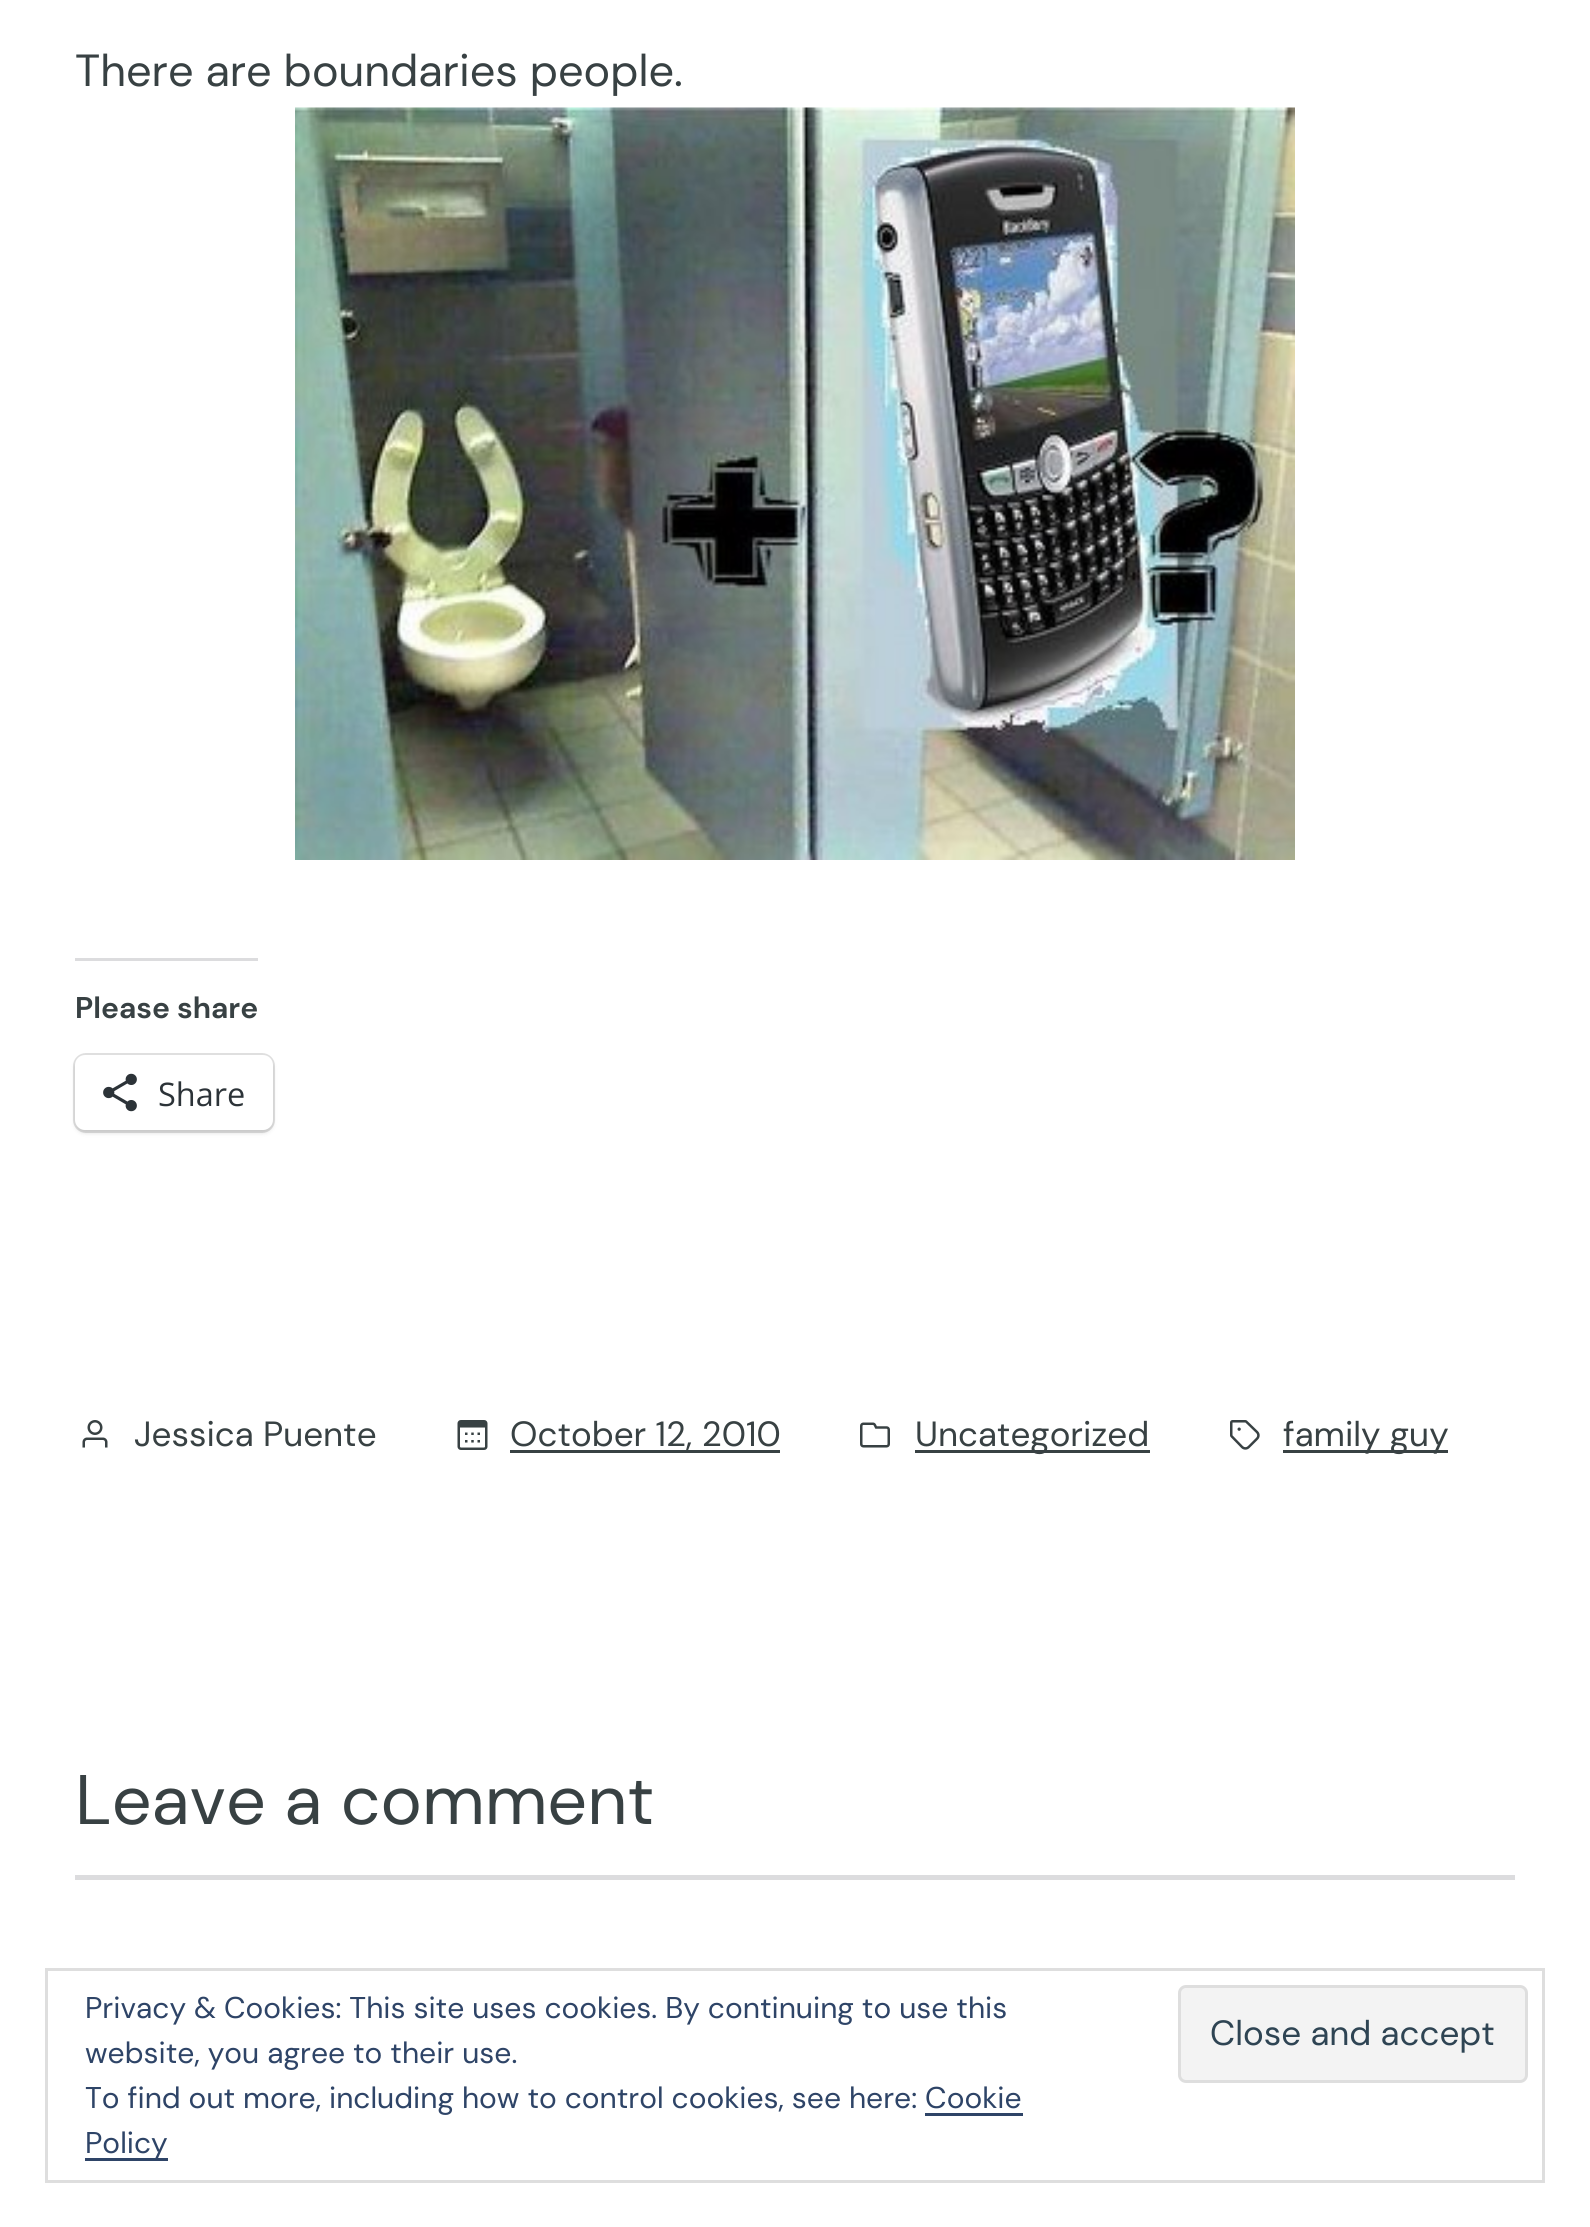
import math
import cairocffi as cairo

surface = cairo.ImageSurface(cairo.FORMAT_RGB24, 1590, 2227)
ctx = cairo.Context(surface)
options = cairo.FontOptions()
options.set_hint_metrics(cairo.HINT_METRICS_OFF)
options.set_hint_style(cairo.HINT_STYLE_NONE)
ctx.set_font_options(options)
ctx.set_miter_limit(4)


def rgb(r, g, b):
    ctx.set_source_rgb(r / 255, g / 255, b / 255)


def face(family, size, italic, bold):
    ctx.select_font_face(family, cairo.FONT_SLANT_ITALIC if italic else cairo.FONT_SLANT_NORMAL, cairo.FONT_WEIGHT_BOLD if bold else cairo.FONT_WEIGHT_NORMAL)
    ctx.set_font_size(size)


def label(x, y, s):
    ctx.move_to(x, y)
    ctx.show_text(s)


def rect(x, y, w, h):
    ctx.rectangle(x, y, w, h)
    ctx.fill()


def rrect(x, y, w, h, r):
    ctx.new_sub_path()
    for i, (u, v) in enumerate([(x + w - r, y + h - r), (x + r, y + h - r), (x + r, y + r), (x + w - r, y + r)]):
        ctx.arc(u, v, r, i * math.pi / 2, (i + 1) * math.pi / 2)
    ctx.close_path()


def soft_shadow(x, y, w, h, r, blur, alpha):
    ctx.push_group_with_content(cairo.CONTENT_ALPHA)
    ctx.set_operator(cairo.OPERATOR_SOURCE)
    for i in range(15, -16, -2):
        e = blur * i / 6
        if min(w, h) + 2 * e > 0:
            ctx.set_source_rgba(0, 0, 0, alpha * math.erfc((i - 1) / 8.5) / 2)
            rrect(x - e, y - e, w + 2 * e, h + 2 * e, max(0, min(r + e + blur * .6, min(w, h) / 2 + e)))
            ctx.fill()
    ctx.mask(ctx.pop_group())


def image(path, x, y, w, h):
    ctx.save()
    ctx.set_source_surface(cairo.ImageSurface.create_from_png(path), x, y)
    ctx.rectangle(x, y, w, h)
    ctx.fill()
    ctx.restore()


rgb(255, 255, 255)
ctx.paint()
face('DM Sans', 45, 0, 0)
rgb(56, 65, 67)
label(75, 86, 'There are boundaries people.')
image('image0.png', 295, 107, 1000, 753)
rgb(220, 220, 222)
rect(75, 958, 183, 3)
face('DM Sans', 30, 0, 1)
rgb(56, 65, 67)
label(75, 1018, 'Please share')
rrect(74.5, 1054.5, 199, 77, 11.5)
rgb(224, 224, 224)
ctx.set_line_width(3)
ctx.stroke()
rgb(0, 0, 0)
soft_shadow(75, 1058, 198, 75, 10, 2.5, 0.12)
rgb(255, 255, 255)
rrect(75, 1055, 198, 75, 10)
ctx.fill()
image('image1.png', 103, 1073, 34, 39)
face('Open Sans', 32.5, 0, 0)
rgb(44, 51, 56)
label(158, 1106, 'Share')
image('image2.png', 82, 1420, 26, 28)
face('DM Sans', 35, 0, 0)
rgb(56, 65, 67)
label(134, 1446, 'Jessica Puente')
image('image3.png', 457, 1420, 31, 30)
rect(510, 1450, 270, 3)
label(510, 1446, 'October 12, 2010')
image('image4.png', 860, 1422, 30, 26)
rect(915, 1450, 235, 3)
label(915, 1446, 'Uncategorized')
image('image5.png', 1230, 1420, 30, 30)
rect(1283, 1450, 165, 3)
label(1283, 1446, 'family guy')
face('DM Sans', 70, 0, 0)
label(75, 1824, 'Leave a comment')
rgb(220, 220, 222)
rect(75, 1875, 1440, 5)
ctx.rectangle(46.5, 1969.5, 1497, 212)
rgb(222, 222, 222)
ctx.stroke()
face('DM Sans', 30, 0, 0)
rgb(46, 68, 103)
label(85, 2018, 'Privacy & Cookies: This site uses cookies. By continuing to use this')
label(85, 2063, 'website, you agree to their use.')
rgb(243, 243, 243)
rrect(1179.5, 1986.5, 347, 95, 6.5)
ctx.fill_preserve()
rgb(222, 222, 222)
ctx.stroke()
face('DM Sans', 35, 0, 0)
rgb(46, 68, 83)
label(1210, 2045, 'Close and accept')
face('DM Sans', 30, 0, 0)
rgb(46, 68, 103)
label(85, 2108, 'To find out more, including how to control cookies, see here: Cookie')
rect(85, 2158, 83, 3)
label(85, 2153, 'Policy')
rect(925, 2113, 98, 3)
surface.write_to_png('render.png')
